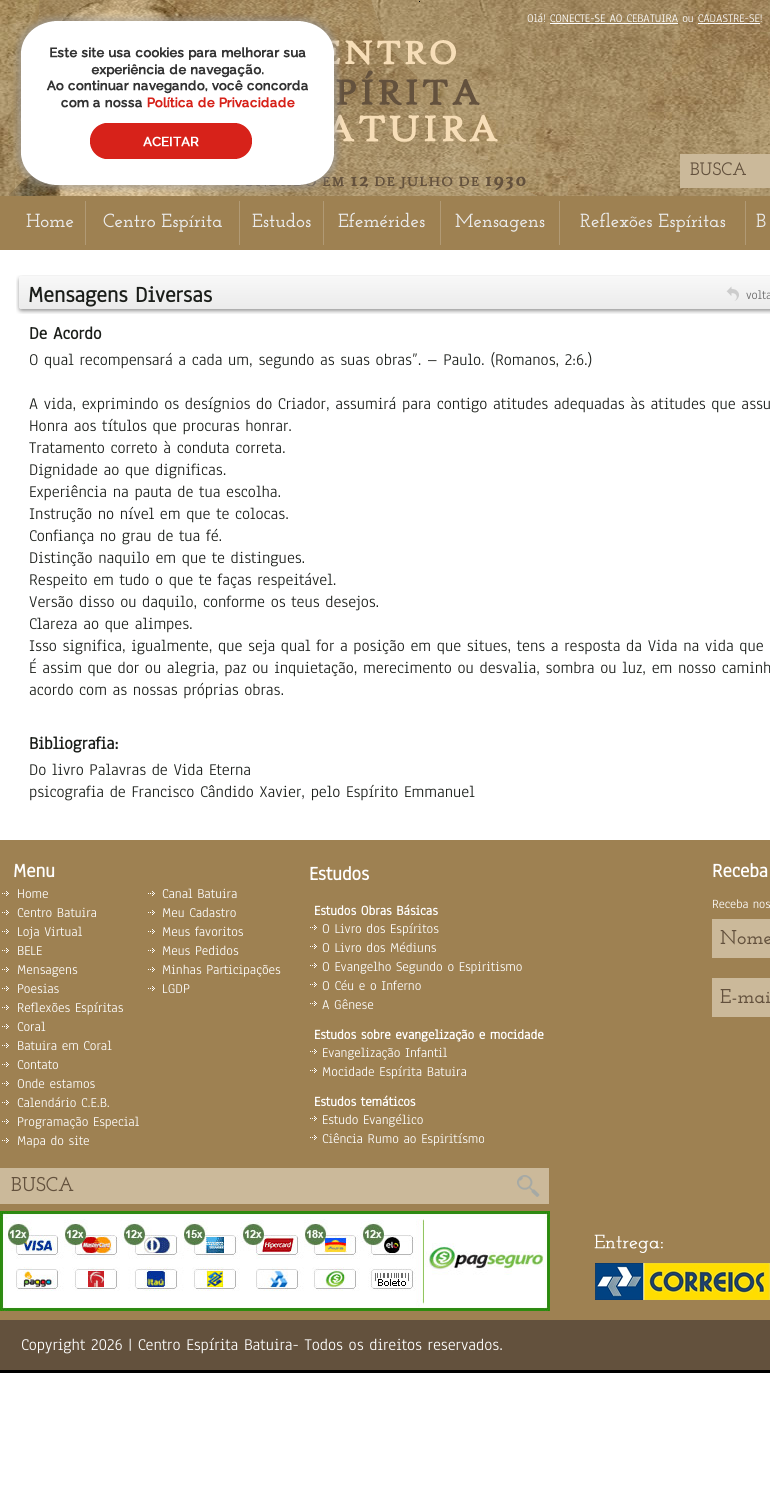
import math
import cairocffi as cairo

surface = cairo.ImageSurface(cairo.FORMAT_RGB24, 770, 1493)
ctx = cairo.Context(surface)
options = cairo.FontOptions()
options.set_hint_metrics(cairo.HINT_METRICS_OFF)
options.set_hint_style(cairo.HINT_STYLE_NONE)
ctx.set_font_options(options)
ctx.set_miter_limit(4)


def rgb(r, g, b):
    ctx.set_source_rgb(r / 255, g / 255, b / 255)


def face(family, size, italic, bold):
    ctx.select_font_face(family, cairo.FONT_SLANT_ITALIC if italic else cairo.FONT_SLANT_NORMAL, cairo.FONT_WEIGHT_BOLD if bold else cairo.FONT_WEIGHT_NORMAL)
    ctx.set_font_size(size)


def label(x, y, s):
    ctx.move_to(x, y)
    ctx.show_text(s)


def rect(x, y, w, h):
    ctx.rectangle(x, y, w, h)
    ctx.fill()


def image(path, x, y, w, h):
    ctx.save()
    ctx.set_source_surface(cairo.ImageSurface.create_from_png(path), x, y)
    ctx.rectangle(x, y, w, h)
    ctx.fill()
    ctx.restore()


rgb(255, 255, 255)
ctx.paint()
image('image0.png', 0, 0, 770, 196)
image('image1.png', 9, 0, 530, 196)
face('Anaheim', 12, 0, 0)
rgb(255, 255, 255)
label(527, 22, 'Olá! CONECTE-SE AO CEBATUIRA ou CADASTRE-SE!')
rect(550, 23, 128, 1)
rect(698, 23, 62, 1)
rgb(203, 185, 154)
rect(680, 154, 90, 34)
face('Josefin Slab SemiBold', 18, 0, 0)
rgb(99, 81, 61)
label(690, 175, 'BUSCA')
rgb(158, 129, 82)
rect(0, 196, 770, 54)
face('Josefin Slab SemiBold', 19, 0, 0)
rgb(235, 235, 235)
label(26, 227, 'Home')
rgb(177, 154, 117)
rect(85, 201, 1, 44)
rgb(235, 235, 235)
label(103, 227, 'Centro Espírita')
rgb(177, 154, 117)
rect(239, 201, 1, 44)
rgb(235, 235, 235)
label(252, 227, 'Estudos')
rgb(177, 154, 117)
rect(323, 201, 1, 44)
rgb(235, 235, 235)
label(338, 227, 'Efemérides')
rgb(177, 154, 117)
rect(440, 201, 1, 44)
rgb(235, 235, 235)
label(455, 227, 'Mensagens')
rgb(177, 154, 117)
rect(559, 201, 1, 44)
rgb(235, 235, 235)
label(580, 227, 'Reflexões Espíritas')
rgb(177, 154, 117)
rect(745, 201, 1, 44)
rgb(235, 235, 235)
label(756, 227, 'B')
image('image2.png', 16, 275, 754, 39)
face('Anaheim', 23, 0, 1)
rgb(27, 30, 26)
label(28, 302, 'Mensagens Diversas')
image('image3.png', 726, 286, 13, 15)
face('Anaheim', 13, 0, 0)
rgb(102, 102, 102)
label(746, 299, 'volta')
face('Anaheim', 18, 0, 1)
rgb(27, 30, 26)
label(29, 339, 'De Acordo')
face('Anaheim', 17, 0, 0)
label(29, 365, 'O qual recompensará a cada um, segundo as suas obras”. – Paulo. (Romanos, 2:6.)')
label(29, 409, 'A vida, exprimindo os desígnios do Criador, assumirá para contigo atitudes adequadas às atitudes que assu')
label(29, 431, 'Honra aos títulos que procuras honrar.')
label(29, 453, 'Tratamento correto à conduta correta.')
label(29, 475, 'Dignidade ao que dignificas.')
label(29, 497, 'Experiência na pauta de tua escolha.')
label(29, 519, 'Instrução no nível em que te colocas.')
label(29, 541, 'Confiança no grau de tua fé.')
label(29, 563, 'Distinção naquilo em que te distingues.')
label(29, 585, 'Respeito em tudo o que te faças respeitável.')
label(29, 607, 'Versão disso ou daquilo, conforme os teus desejos.')
label(29, 629, 'Clareza ao que alimpes.')
label(29, 651, 'Isso significa, igualmente, que seja qual for a posição em que situes, tens a resposta da Vida na vida que')
label(29, 673, 'É assim que dor ou alegria, paz ou inquietação, merecimento ou desvalia, sombra ou luz, em nosso caminh')
label(29, 695, 'acordo com as nossas próprias obras.')
face('Anaheim', 18, 0, 1)
label(29, 749, 'Bibliografia:')
face('Anaheim', 17, 0, 0)
label(29, 775, 'Do livro Palavras de Vida Eterna')
label(29, 797, 'psicografia de Francisco Cândido Xavier, pelo Espírito Emmanuel')
rgb(158, 129, 82)
rect(0, 840, 770, 480)
face('Anaheim', 20, 0, 1)
rgb(255, 255, 255)
label(13, 877, 'Menu')
label(309, 880, 'Estudos')
face('Anaheim', 14, 0, 1)
label(314, 915, 'Estudos Obras Básicas')
image('image4.png', 310, 925, 7, 5)
face('Anaheim', 14, 0, 0)
label(322, 933, 'O Livro dos Espíritos')
image('image4.png', 310, 944, 7, 5)
label(322, 952, 'O Livro dos Médiuns')
image('image4.png', 310, 963, 7, 5)
label(322, 971, 'O Evangelho Segundo o Espiritismo')
image('image4.png', 310, 982, 7, 5)
label(322, 990, 'O Céu e o Inferno')
image('image4.png', 310, 1001, 7, 5)
label(322, 1009, 'A Gênese')
face('Anaheim', 14, 0, 1)
label(314, 1039, 'Estudos sobre evangelização e mocidade')
image('image4.png', 310, 1049, 7, 5)
face('Anaheim', 14, 0, 0)
label(322, 1057, 'Evangelização Infantil')
image('image4.png', 310, 1068, 7, 5)
label(322, 1076, 'Mocidade Espírita Batuira')
face('Anaheim', 14, 0, 1)
label(314, 1106, 'Estudos temáticos')
image('image4.png', 310, 1116, 7, 5)
face('Anaheim', 14, 0, 0)
label(322, 1124, 'Estudo Evangélico')
image('image4.png', 310, 1135, 7, 5)
label(322, 1143, 'Ciência Rumo ao Espiritísmo')
image('image4.png', 2, 891, 7, 5)
label(17, 898, 'Home')
image('image4.png', 2, 910, 7, 5)
label(17, 917, 'Centro Batuira')
image('image4.png', 2, 929, 7, 5)
label(17, 936, 'Loja Virtual')
image('image4.png', 2, 948, 7, 5)
label(17, 955, 'BELE')
image('image4.png', 2, 967, 7, 5)
label(17, 974, 'Mensagens')
image('image4.png', 2, 986, 7, 5)
label(17, 993, 'Poesias')
image('image4.png', 2, 1005, 7, 5)
label(17, 1012, 'Reflexões Espíritas')
image('image4.png', 2, 1024, 7, 5)
label(17, 1031, 'Coral')
image('image4.png', 2, 1043, 7, 5)
label(17, 1050, 'Batuira em Coral')
image('image4.png', 2, 1062, 7, 5)
label(17, 1069, 'Contato')
image('image4.png', 2, 1081, 7, 5)
label(17, 1088, 'Onde estamos')
image('image4.png', 2, 1100, 7, 5)
label(17, 1107, 'Calendário C.E.B.')
image('image4.png', 2, 1119, 7, 5)
label(17, 1126, 'Programação Especial')
image('image4.png', 2, 1138, 7, 5)
label(17, 1145, 'Mapa do site')
image('image4.png', 148, 891, 7, 5)
label(162, 898, 'Canal Batuira')
image('image4.png', 148, 910, 7, 5)
label(162, 917, 'Meu Cadastro')
image('image4.png', 148, 929, 7, 5)
label(162, 936, 'Meus favoritos')
image('image4.png', 148, 948, 7, 5)
label(162, 955, 'Meus Pedidos')
image('image4.png', 148, 967, 7, 5)
label(162, 974, 'Minhas Participações')
image('image4.png', 148, 986, 7, 5)
label(162, 993, 'LGDP')
face('Anaheim', 20, 0, 1)
label(712, 877, 'Receba')
face('Anaheim', 13, 0, 0)
label(712, 908, 'Receba nos')
rgb(203, 185, 154)
rect(712, 919, 58, 39)
face('Josefin Slab SemiBold', 20, 0, 0)
rgb(99, 81, 61)
label(720, 944, 'Nome')
rgb(203, 185, 154)
rect(712, 978, 58, 39)
rgb(99, 81, 61)
label(720, 1003, 'E-mai')
image('image5.png', 13, 13, 329, 180)
rgb(203, 185, 154)
rect(0, 1168, 549, 36)
rgb(99, 81, 61)
label(11, 1191, 'BUSCA')
image('image6.png', 517, 1175, 23, 22)
image('image7.png', 594, 1234, 176, 66)
image('image8.png', 0, 1211, 550, 100)
rect(0, 1320, 770, 50)
face('Anaheim', 17, 0, 0)
rgb(255, 255, 255)
label(21, 1350, 'Copyright 2026 | Centro Espírita Batuira- Todos os direitos reservados.')
rgb(0, 0, 0)
rect(0, 1370, 770, 3)
surface.write_to_png('render.png')
